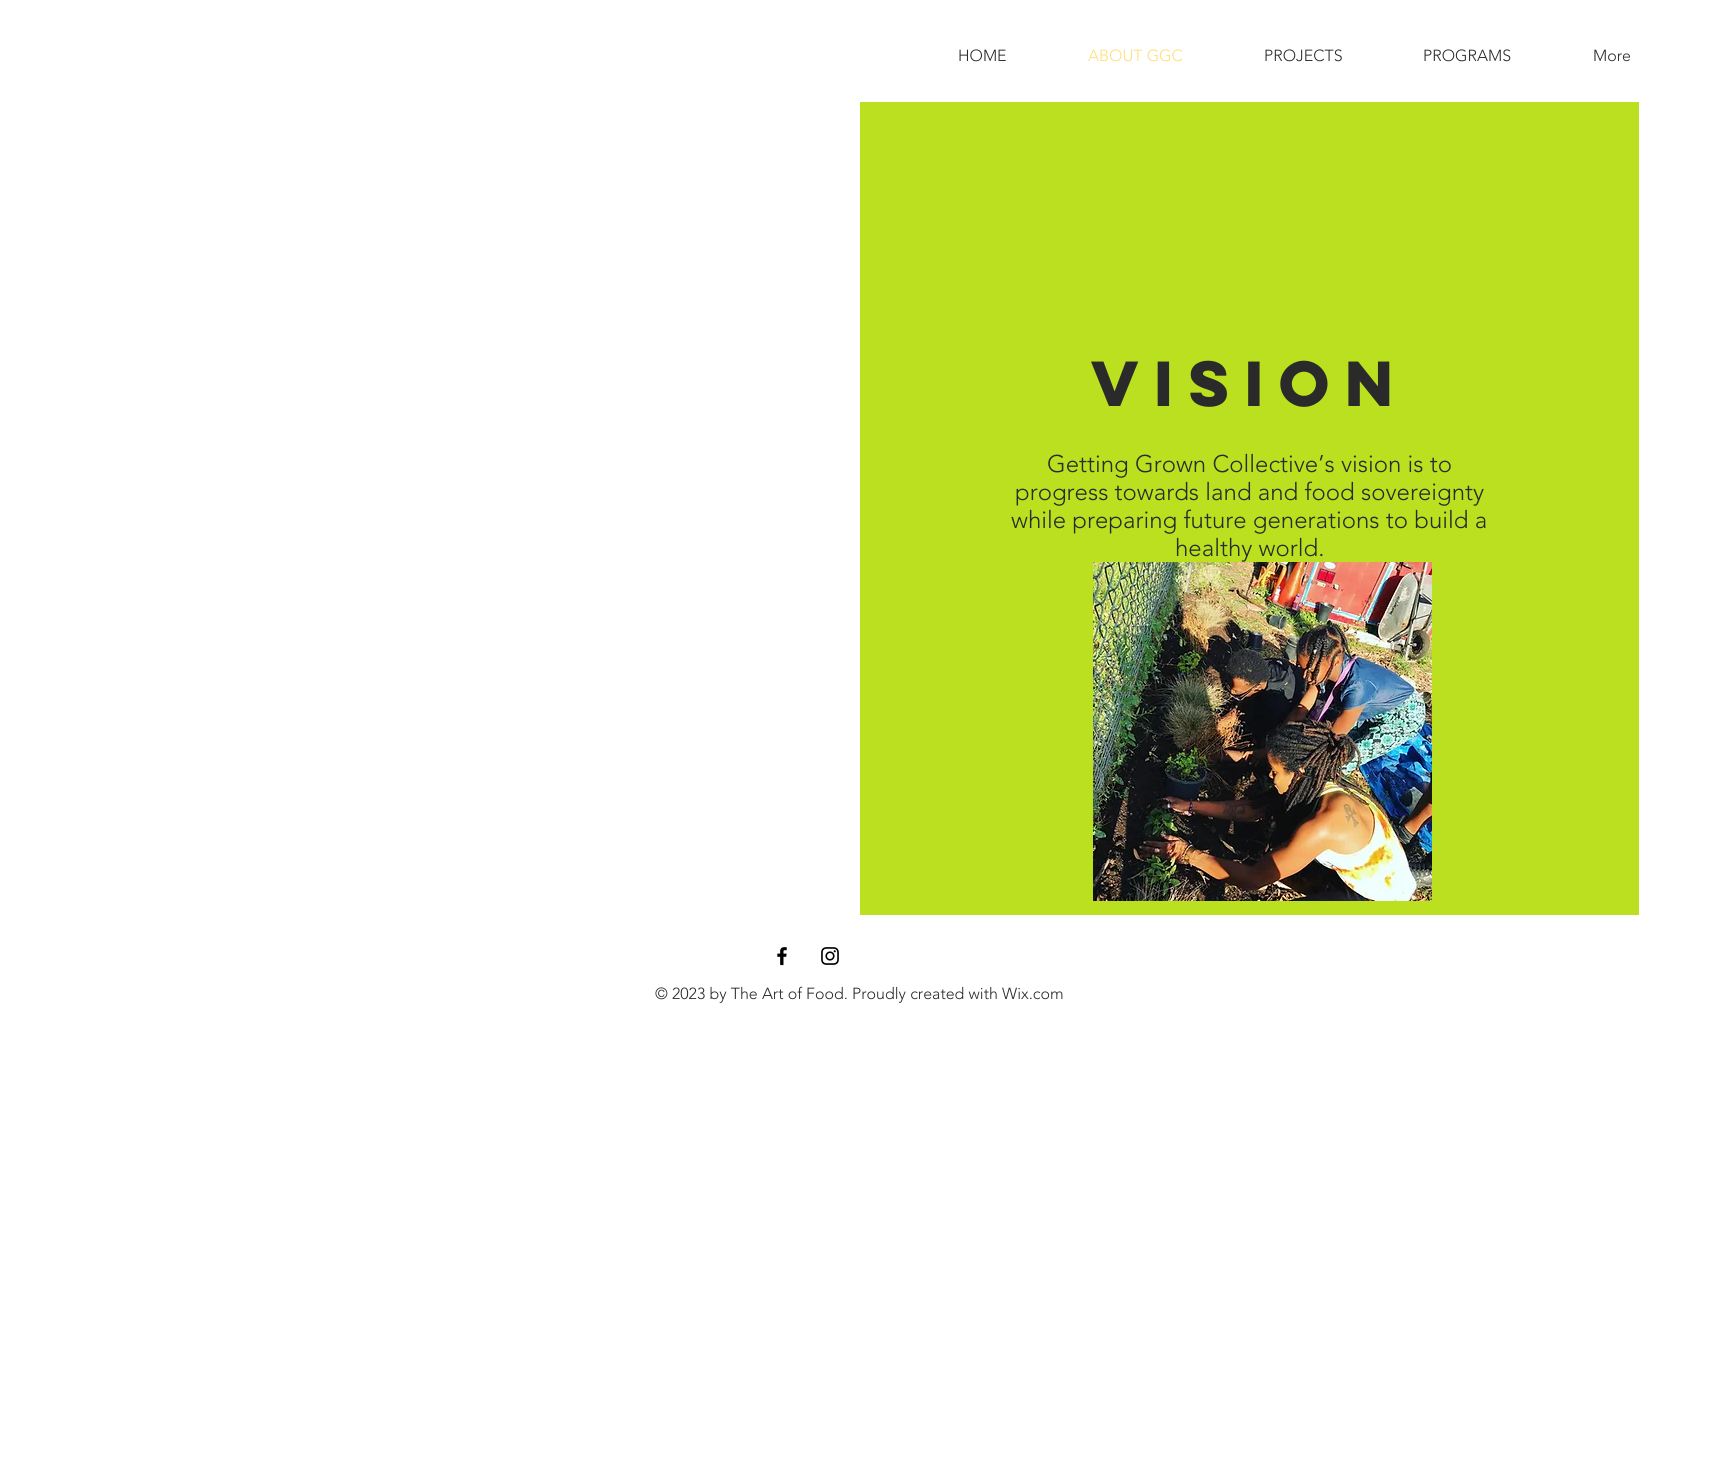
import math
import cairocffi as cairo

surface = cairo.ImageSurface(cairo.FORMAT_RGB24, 1719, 1471)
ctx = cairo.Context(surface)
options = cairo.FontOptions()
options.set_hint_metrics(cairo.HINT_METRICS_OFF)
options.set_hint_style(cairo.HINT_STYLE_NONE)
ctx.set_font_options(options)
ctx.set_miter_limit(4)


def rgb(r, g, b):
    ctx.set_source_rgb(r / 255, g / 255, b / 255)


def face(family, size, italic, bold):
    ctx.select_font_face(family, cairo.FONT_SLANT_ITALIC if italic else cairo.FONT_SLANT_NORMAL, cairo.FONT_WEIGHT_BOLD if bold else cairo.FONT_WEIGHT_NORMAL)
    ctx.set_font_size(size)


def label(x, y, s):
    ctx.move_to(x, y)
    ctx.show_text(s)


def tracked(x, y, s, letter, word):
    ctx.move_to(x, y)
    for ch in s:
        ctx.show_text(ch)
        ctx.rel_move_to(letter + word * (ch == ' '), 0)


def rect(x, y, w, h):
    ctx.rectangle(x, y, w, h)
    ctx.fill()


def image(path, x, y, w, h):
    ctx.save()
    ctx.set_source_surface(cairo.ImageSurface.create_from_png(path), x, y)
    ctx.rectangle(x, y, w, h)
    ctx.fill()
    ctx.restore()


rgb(255, 255, 255)
ctx.paint()
face('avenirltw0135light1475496 Light', 16, 0, 0)
rgb(42, 42, 42)
label(958, 61, 'HOME')
rgb(255, 222, 122)
label(1088, 61, 'ABOUT GGC')
rgb(42, 42, 42)
label(1264, 61, 'PROJECTS')
label(1423, 61, 'PROGRAMS')
label(1593, 61, 'More')
rgb(186, 224, 31)
rect(860, 102, 779, 813)
face('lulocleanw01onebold', 57, 0, 1)
rgb(42, 42, 42)
tracked(1091, 406, 'VISiON', 3, 0)
face('avenirltw0135light1475496 Light', 24, 0, 0)
label(1047, 472, 'Getting Grown Collective’s vision is to')
label(1015, 500, 'progress towards land and food sovereignty')
label(1011, 528, 'while preparing future generations to build a')
label(1175, 556, 'healthy world.')
image('image0.png', 1093, 562, 339, 339)
image('image1.png', 777, 946, 10, 20)
image('image2.png', 821, 947, 18, 18)
face('avenirltw0135light1475496 Light', 16, 0, 0)
label(655, 999, '© 2023 by The Art of Food. Proudly created with Wix.com')
surface.write_to_png('render.png')
